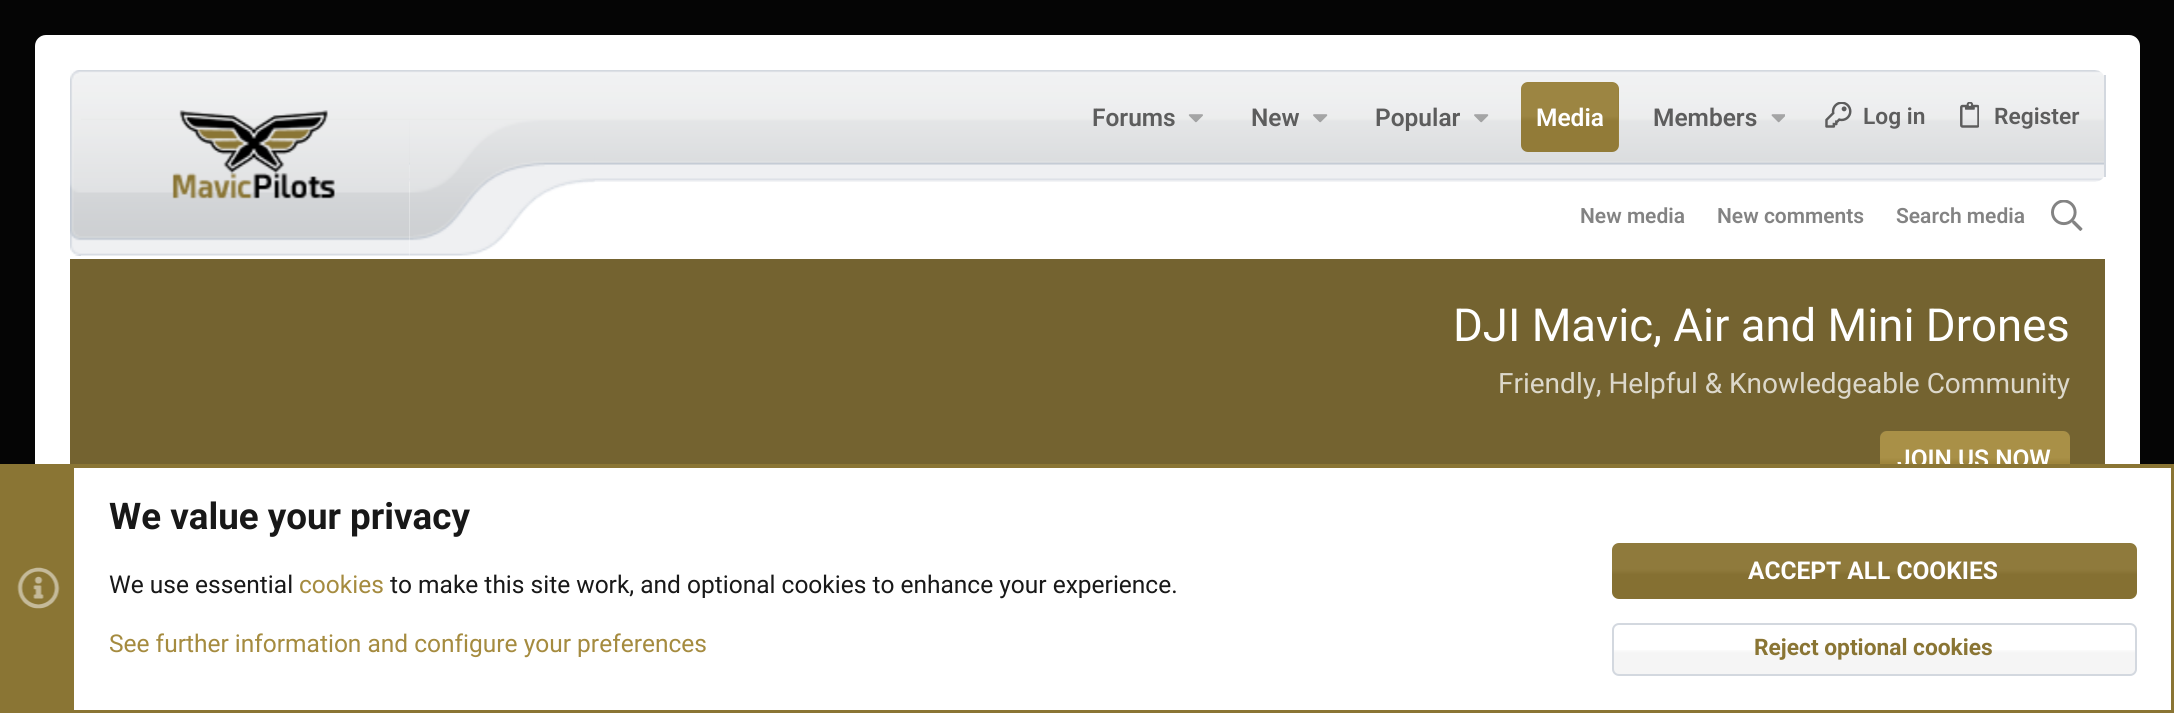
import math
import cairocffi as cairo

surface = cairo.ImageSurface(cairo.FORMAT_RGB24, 2174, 713)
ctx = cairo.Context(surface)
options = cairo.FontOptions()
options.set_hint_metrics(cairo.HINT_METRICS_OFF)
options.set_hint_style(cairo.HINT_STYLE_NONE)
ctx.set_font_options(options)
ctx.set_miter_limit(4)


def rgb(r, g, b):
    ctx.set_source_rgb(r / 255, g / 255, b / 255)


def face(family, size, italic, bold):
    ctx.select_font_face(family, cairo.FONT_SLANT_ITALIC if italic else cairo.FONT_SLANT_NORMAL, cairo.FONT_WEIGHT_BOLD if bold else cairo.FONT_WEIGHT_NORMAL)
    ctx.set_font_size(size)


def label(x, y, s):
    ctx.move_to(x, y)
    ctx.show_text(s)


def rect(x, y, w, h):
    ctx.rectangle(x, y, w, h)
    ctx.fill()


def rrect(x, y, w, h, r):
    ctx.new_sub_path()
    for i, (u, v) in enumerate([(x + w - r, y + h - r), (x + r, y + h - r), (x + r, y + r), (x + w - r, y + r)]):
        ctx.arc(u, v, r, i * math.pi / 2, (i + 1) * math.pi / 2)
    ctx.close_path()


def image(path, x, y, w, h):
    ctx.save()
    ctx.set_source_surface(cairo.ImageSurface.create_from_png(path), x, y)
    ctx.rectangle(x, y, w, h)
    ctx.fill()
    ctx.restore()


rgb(5, 5, 5)
ctx.paint()
rgb(255, 255, 255)
rrect(35, 35, 2105, 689, 11)
ctx.fill()
image('image0.png', 70, 70, 2034, 112)
rgb(211, 216, 223)
rect(2104, 75, 2, 102)
image('image1.png', 81, 120, 329, 136)
image('image2.png', 70, 70, 11, 186)
image('image3.png', 172, 110, 163, 89)
image('image4.png', 409, 120, 186, 136)
face('Roboto SemiBold', 24.5, 0, 0)
rgb(93, 93, 93)
label(1092, 126, 'Forums')
image('image5.png', 1188, 114, 15, 9)
label(1251, 126, 'New')
image('image6.png', 1313, 114, 15, 9)
label(1375, 126, 'Popular')
image('image6.png', 1474, 114, 15, 9)
rgb(152, 128, 58)
rrect(1521, 82, 98, 70, 7)
ctx.fill()
image('image7.png', 1521, 82, 97, 70)
rgb(255, 255, 255)
label(1536, 126, 'Media')
rgb(93, 93, 93)
label(1653, 126, 'Members')
image('image8.png', 1771, 114, 14, 9)
image('image9.png', 1825, 102, 27, 26)
face('Roboto SemiBold', 22.75, 0, 0)
label(1863, 124, 'Log in')
image('image10.png', 1960, 102, 19, 26)
label(1994, 124, 'Register')
face('Roboto SemiBold', 21, 0, 0)
rgb(131, 131, 131)
label(1580, 223, 'New media')
label(1717, 223, 'New comments')
label(1896, 223, 'Search media')
image('image11.png', 2051, 200, 32, 31)
rgb(116, 99, 48)
rect(70, 259, 2035, 205)
face('Roboto', 45.5, 0, 0)
rgb(255, 255, 255)
label(1453, 341, 'DJI Mavic, Air and Mini Drones')
face('Roboto', 28, 0, 0)
rgb(220, 216, 203)
label(1498, 393, 'Friendly, Helpful & Knowledgeable Community')
rgb(165, 139, 63)
rrect(1880, 431, 190, 56, 7)
ctx.fill()
image('image12.png', 1880, 431, 190, 33)
face('Roboto SemiBold', 24.5, 0, 0)
rgb(255, 255, 255)
label(1897, 467, 'JOIN US NOW')
rect(1880, 468, 291, 242)
ctx.rectangle(2, 466, 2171, 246)
rgb(138, 117, 52)
ctx.set_line_width(4)
ctx.stroke()
rect(4, 468, 70, 242)
image('image13.png', 17, 567, 43, 42)
face('Roboto', 36.75, 0, 1)
rgb(24, 24, 24)
label(109, 529, 'We value your privacy')
face('Roboto', 24.5, 0, 0)
label(109, 593, 'We use essential')
rgb(165, 139, 63)
label(299, 593, 'cookies')
rgb(24, 24, 24)
label(390, 593, 'to make this site work, and optional cookies to enhance your experience.')
rgb(165, 139, 63)
label(109, 652, 'See further information and configure your preferences')
rgb(138, 117, 52)
rrect(1612, 543, 525, 56, 7)
ctx.fill()
image('image14.png', 1612, 543, 525, 56)
face('Roboto', 24.5, 0, 1)
rgb(255, 255, 255)
label(1748, 579, 'ACCEPT ALL COOKIES')
image('image15.png', 1612, 650, 525, 24)
rrect(1613, 624, 523, 51, 6)
rgb(211, 216, 223)
ctx.set_line_width(2)
ctx.stroke()
face('Roboto', 22.75, 0, 1)
rgb(138, 117, 52)
label(1754, 655, 'Reject optional cookies')
surface.write_to_png('render.png')
